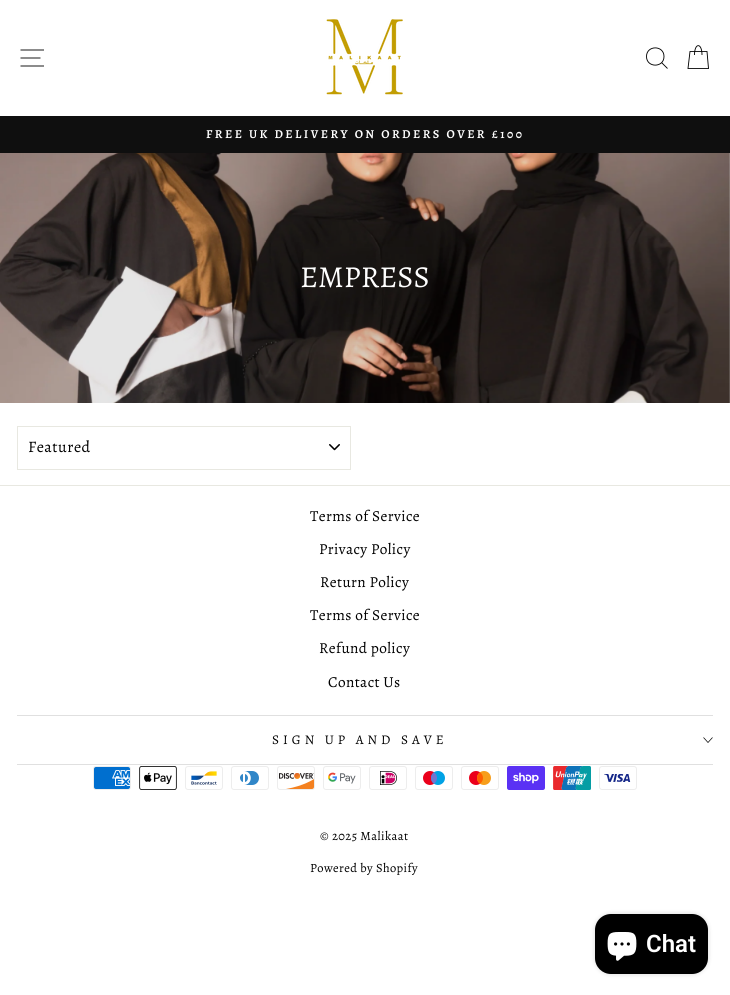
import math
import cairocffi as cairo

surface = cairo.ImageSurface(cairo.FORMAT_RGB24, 730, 995)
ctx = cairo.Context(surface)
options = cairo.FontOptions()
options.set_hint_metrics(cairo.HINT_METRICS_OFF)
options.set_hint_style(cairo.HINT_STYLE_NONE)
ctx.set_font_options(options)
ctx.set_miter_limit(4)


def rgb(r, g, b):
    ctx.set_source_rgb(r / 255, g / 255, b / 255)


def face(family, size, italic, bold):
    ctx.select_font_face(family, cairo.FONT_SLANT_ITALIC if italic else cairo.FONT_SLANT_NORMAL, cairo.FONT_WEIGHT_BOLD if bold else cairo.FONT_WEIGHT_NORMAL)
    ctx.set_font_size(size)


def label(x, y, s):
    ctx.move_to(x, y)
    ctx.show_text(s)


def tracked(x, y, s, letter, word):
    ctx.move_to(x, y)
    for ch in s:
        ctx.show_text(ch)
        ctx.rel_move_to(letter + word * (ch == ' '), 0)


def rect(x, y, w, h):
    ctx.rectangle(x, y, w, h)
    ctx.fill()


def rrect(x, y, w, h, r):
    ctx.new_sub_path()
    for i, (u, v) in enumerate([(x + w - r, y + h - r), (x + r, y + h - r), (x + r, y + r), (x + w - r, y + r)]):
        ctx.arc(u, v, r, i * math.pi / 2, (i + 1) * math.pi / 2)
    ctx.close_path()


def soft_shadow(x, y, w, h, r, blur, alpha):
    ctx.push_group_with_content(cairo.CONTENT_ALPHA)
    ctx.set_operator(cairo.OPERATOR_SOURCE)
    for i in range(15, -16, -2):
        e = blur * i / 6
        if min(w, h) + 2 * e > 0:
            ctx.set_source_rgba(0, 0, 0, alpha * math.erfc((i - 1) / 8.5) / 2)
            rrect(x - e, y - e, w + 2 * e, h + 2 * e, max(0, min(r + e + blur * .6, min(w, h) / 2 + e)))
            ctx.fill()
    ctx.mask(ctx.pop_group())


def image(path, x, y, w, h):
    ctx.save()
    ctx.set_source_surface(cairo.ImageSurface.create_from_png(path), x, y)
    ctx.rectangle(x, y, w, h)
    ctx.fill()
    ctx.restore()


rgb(255, 255, 255)
ctx.paint()
ctx.new_path()
ctx.move_to(20.5, 50)
ctx.line_to(44, 50)
ctx.move_to(20.5, 58)
ctx.line_to(40.5, 58)
ctx.move_to(20.5, 66)
ctx.line_to(44, 66)
rgb(0, 0, 0)
ctx.set_line_width(0.9)
ctx.stroke()
image('image0.png', 326, 19, 77, 76)
ctx.new_path()
ctx.move_to(664, 56.5)
ctx.curve_to(664, 68, 646.5, 68, 646.5, 56.5)
ctx.curve_to(646.5, 45, 664, 45, 664, 56.5)
ctx.close_path()
ctx.move_to(667.5, 68.5)
ctx.line_to(661.5, 62.5)
ctx.move_to(694.5, 55)
ctx.curve_to(694.5, 42.5, 702, 42.5, 702, 55)
ctx.move_to(690, 51.5)
ctx.line_to(707, 51.5)
ctx.line_to(708.5, 68.5)
ctx.line_to(688, 68.5)
ctx.close_path()
ctx.stroke()
rgb(15, 15, 15)
rect(0, 116, 730, 37)
face('Alegreya SemiBold', 12.15, 0, 0)
rgb(255, 255, 255)
tracked(206, 138, 'FREE UK DELIVERY ON ORDERS OVER £100', 2.45, 0)
image('image1.png', 0, 153, 730, 250)
face('Alegreya', 30.5, 0, 0)
label(300, 287, 'EMPRESS')
image('image2.png', 329, 444, 11, 7)
ctx.rectangle(17.5, 426.5, 333, 43)
rgb(232, 232, 225)
ctx.set_line_width(1)
ctx.stroke()
face('Alegreya', 16, 0, 0)
rgb(0, 0, 0)
tracked(28, 452, 'Featured', 0.5, 0)
rgb(232, 232, 225)
rect(0, 485, 730, 1)
face('Alegreya', 15.25, 0, 0)
rgb(0, 0, 0)
tracked(310, 521, 'Terms of Service', 0.4, 0)
tracked(319, 554, 'Privacy Policy', 0.4, 0)
tracked(320, 587, 'Return Policy', 0.4, 0)
tracked(310, 620, 'Terms of Service', 0.4, 0)
tracked(319, 653, 'Refund policy', 0.4, 0)
tracked(328, 687, 'Contact Us', 0.4, 0)
rgb(224, 224, 224)
rect(17, 715, 696, 1)
face('Alegreya', 13.25, 0, 0)
rgb(0, 0, 0)
tracked(272, 744, 'SIGN UP AND SAVE', 4, 0)
ctx.new_path()
ctx.move_to(703.5, 737.5)
ctx.line_to(708, 742.5)
ctx.line_to(712.5, 737.5)
ctx.set_line_width(0.7)
ctx.stroke()
rgb(224, 224, 224)
rect(17, 764, 696, 1)
image('image3.png', 93, 766, 38, 24)
image('image4.png', 139, 766, 38, 24)
image('image5.png', 185, 766, 38, 24)
image('image6.png', 231, 766, 38, 24)
image('image7.png', 277, 766, 38, 24)
image('image8.png', 323, 766, 38, 24)
image('image9.png', 369, 766, 38, 24)
image('image10.png', 415, 766, 38, 24)
image('image11.png', 461, 766, 38, 24)
image('image12.png', 507, 766, 38, 24)
image('image13.png', 553, 766, 38, 24)
image('image14.png', 599, 766, 38, 24)
face('Alegreya', 12.5, 0, 0)
rgb(0, 0, 0)
tracked(320, 840, '© 2025 Malikaat', 0.4, 0)
tracked(310, 872, 'Powered by Shopify', 0.4, 0)
rgb(0, 0, 0)
soft_shadow(595, 914, 113, 60, 16, 2.5, 0.15)
rgb(0, 0, 0)
rrect(595, 914, 113, 60, 16)
ctx.fill()
image('image15.png', 607, 932, 30, 29)
face('Roboto SemiBold', 24, 0, 0)
rgb(255, 255, 255)
label(646, 952, 'Chat')
surface.write_to_png('render.png')
